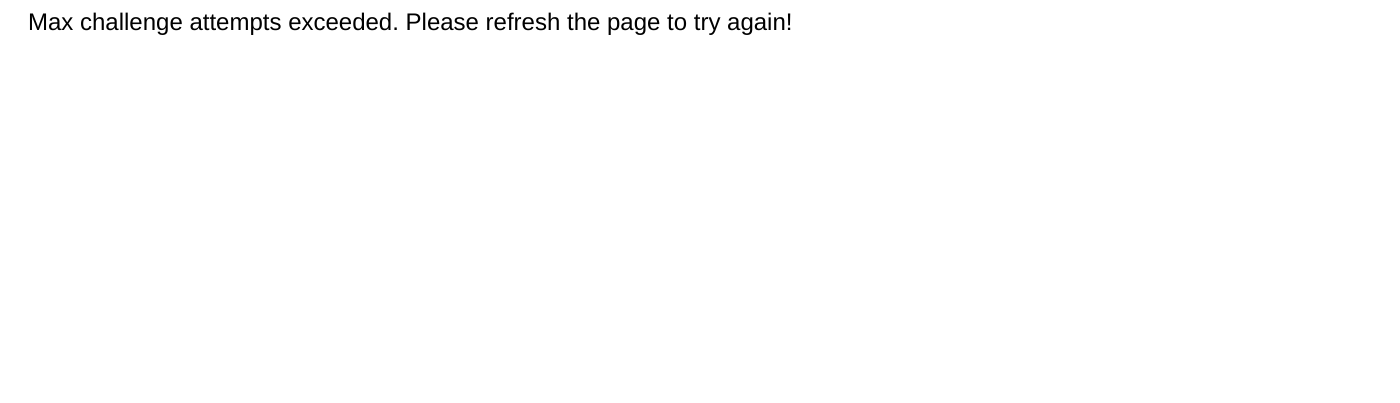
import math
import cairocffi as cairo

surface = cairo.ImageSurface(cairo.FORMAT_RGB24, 1400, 403)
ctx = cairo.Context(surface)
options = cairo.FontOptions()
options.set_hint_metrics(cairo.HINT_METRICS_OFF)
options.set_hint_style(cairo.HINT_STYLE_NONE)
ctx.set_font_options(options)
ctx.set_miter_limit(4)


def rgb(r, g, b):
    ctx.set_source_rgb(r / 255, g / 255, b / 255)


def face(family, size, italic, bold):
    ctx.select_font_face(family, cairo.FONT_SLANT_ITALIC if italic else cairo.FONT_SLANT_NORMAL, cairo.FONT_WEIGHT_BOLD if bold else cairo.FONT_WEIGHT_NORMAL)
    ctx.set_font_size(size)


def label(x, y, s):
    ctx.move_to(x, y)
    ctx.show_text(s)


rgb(255, 255, 255)
ctx.paint()
face('Liberation Sans', 24, 0, 0)
rgb(0, 0, 0)
label(28, 30, 'Max challenge attempts exceeded. Please refresh the page to try again!')
surface.write_to_png('render.png')
